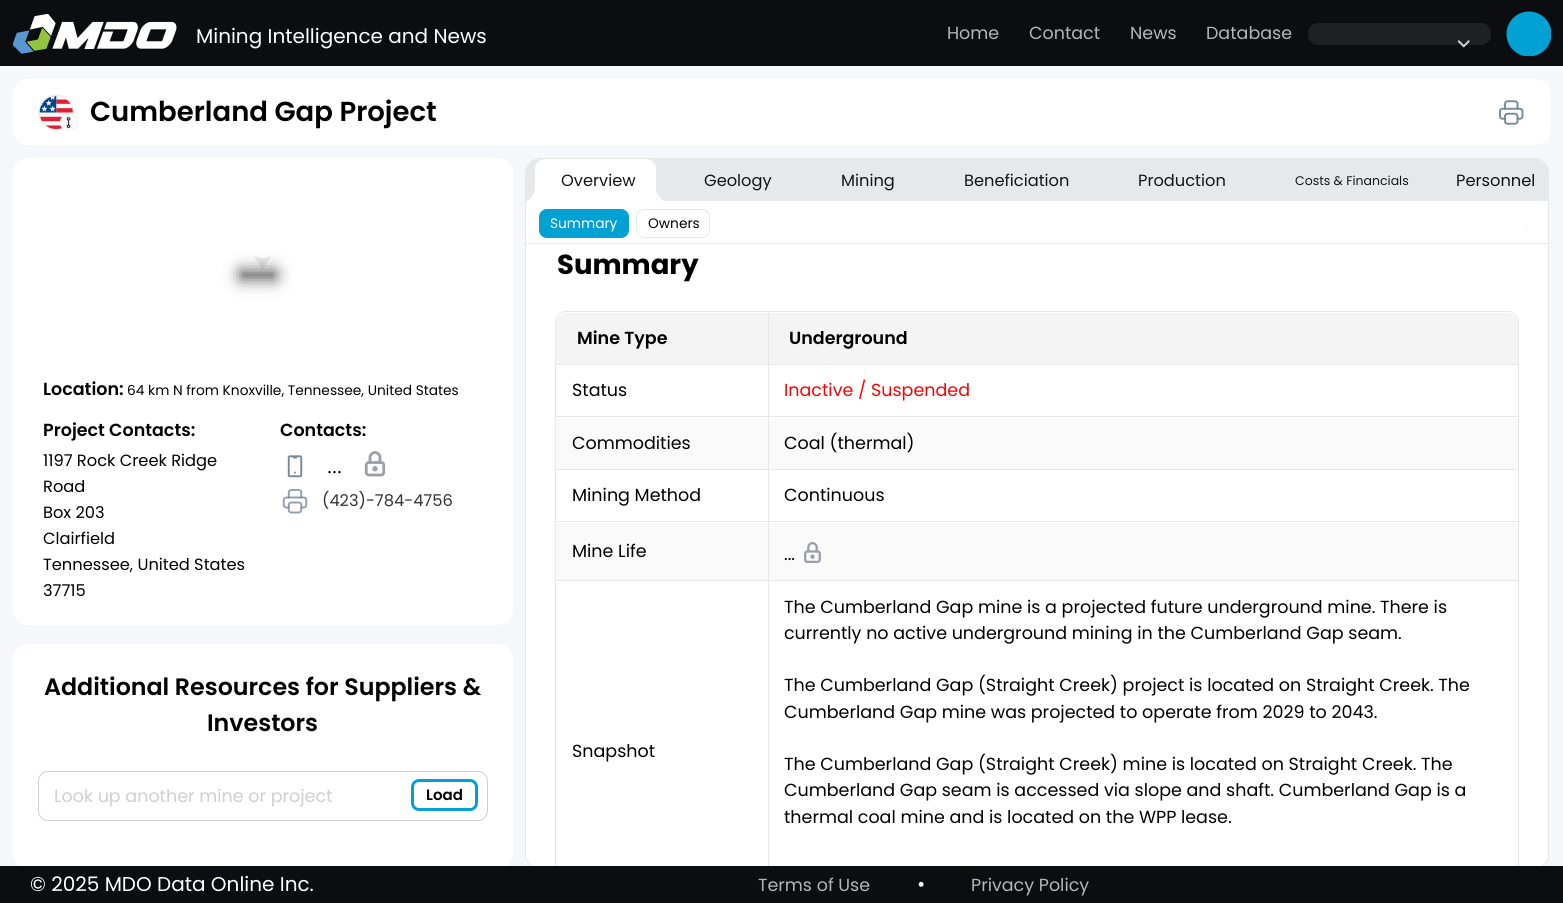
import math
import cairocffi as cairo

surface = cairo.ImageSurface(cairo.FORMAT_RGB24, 1563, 903)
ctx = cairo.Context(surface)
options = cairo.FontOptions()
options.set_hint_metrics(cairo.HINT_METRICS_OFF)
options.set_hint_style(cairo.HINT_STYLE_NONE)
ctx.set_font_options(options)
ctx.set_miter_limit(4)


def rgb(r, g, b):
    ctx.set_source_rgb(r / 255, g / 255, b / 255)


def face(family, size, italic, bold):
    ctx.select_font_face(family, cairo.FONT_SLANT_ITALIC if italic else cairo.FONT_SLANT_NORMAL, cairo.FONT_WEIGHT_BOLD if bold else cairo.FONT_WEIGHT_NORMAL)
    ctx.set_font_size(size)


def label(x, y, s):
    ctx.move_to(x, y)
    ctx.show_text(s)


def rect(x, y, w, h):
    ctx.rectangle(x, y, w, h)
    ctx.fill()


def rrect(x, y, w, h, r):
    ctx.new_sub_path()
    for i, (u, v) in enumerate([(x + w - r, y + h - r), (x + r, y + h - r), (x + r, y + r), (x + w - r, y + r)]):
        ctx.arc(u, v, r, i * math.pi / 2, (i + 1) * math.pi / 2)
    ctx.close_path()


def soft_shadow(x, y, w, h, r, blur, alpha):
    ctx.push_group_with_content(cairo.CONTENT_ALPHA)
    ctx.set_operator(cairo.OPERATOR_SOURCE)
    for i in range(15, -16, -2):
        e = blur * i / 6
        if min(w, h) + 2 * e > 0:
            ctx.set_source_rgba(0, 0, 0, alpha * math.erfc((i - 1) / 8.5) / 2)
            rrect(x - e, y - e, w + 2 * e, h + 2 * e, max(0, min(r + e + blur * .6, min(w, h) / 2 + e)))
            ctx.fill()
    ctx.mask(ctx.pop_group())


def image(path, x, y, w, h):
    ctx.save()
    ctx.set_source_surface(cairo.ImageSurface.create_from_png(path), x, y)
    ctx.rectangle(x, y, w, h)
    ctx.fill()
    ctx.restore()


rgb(246, 247, 250)
ctx.paint()
rgb(12, 13, 17)
rect(0, 0, 1563, 66)
image('image0.png', 13, 14, 164, 40)
face('Poppins', 20, 0, 0)
rgb(255, 255, 255)
label(196, 43, 'Mining Intelligence and News')
face('Poppins', 17.5, 0, 0)
rgb(182, 182, 184)
label(947, 39, 'Home')
label(1029, 39, 'Contact')
label(1130, 39, 'News')
label(1206, 39, 'Database')
rgb(31, 32, 36)
rrect(1308, 23, 183, 22, 10)
ctx.fill()
image('image1.png', 1457, 40, 13, 8)
ctx.save()
ctx.rectangle(1506, 11, 45, 45)
ctx.clip()
rgb(2, 161, 211)
ctx.arc(1529, 34, 22.5, 0, 2 * math.pi)
ctx.fill()
ctx.restore()
rgb(255, 255, 255)
rrect(13, 79, 1538, 66, 15)
ctx.fill()
image('image2.png', 38, 94, 36, 37)
rgb(250, 250, 250)
rrect(60, 114, 18, 17, 8.5)
ctx.fill()
image('image3.png', 66, 117, 5, 12)
rrect(60.5, 114.5, 17, 16, 8)
rgb(241, 242, 245)
ctx.set_line_width(1)
ctx.stroke()
face('Poppins SemiBold', 27.5, 0, 0)
rgb(0, 0, 0)
label(90, 121, 'Cumberland Gap Project')
image('image4.png', 1499, 100, 25, 25)
rgb(255, 255, 255)
rrect(13, 158, 500, 467, 15)
ctx.fill()
rgb(235, 235, 235)
ctx.new_path()
ctx.move_to(254, 256)
ctx.line_to(271, 256)
ctx.line_to(262.5, 270)
ctx.close_path()
ctx.fill()
rgb(255, 255, 255)
ctx.new_path()
ctx.move_to(262.5, 223)
ctx.curve_to(272, 223, 280, 231, 280, 240.5)
ctx.curve_to(280, 250, 272, 258, 262.5, 258)
ctx.curve_to(253, 258, 245, 250, 245, 240.5)
ctx.curve_to(245, 231, 253, 223, 262.5, 223)
ctx.close_path()
ctx.fill()
rgb(0, 0, 0)
soft_shadow(243, 273, 30, 4, 0, 9, 0.79)
face('Poppins SemiBold', 17.5, 0, 0)
rgb(0, 0, 0)
label(43, 395, 'Location:')
face('Poppins', 13.75, 0, 0)
label(127, 395, '64 km N from Knoxville, Tennessee, United States')
face('Poppins SemiBold', 17.5, 0, 0)
label(43, 436, 'Project Contacts:')
face('Poppins', 16.25, 0, 0)
label(43, 466, '1197 Rock Creek Ridge')
label(43, 492, 'Road')
label(43, 518, 'Box 203')
label(43, 544, 'Clairfield')
label(43, 570, 'Tennessee, United States')
label(43, 596, '37715')
face('Poppins SemiBold', 17.5, 0, 0)
label(280, 436, 'Contacts:')
image('image5.png', 287, 455, 16, 23)
face('Liberation Serif', 20, 0, 0)
label(327, 473, '...')
image('image6.png', 364, 451, 22, 26)
image('image7.png', 282, 489, 26, 25)
face('Poppins', 16.25, 0, 0)
rgb(51, 51, 51)
label(322, 506, '(423)-784-4756')
rgb(12, 13, 17)
rect(0, 866, 1563, 37)
ctx.save()
ctx.rectangle(0, 145, 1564, 721)
ctx.clip()
rgb(255, 255, 255)
rrect(13, 644, 500, 225, 15)
ctx.fill()
ctx.restore()
face('Poppins SemiBold', 23.75, 0, 0)
rgb(0, 0, 0)
label(44, 695, 'Additional Resources for Suppliers &')
label(207, 731, 'Investors')
rrect(38.5, 771.5, 449, 49, 9.5)
rgb(207, 207, 207)
ctx.stroke()
face('Poppins', 17.5, 0, 0)
label(54, 802, 'Look up another mine or project')
rrect(412.5, 780.5, 64, 29, 6.5)
rgb(2, 161, 211)
ctx.set_line_width(3)
ctx.stroke()
face('Poppins SemiBold', 15, 0, 0)
rgb(0, 0, 0)
label(426, 800, 'Load')
ctx.save()
ctx.rectangle(0, 145, 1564, 721)
ctx.clip()
rrect(525.5, 158.5, 1023, 710, 14.5)
rgb(231, 231, 231)
ctx.set_line_width(1)
ctx.stroke()
ctx.restore()
rgb(231, 232, 236)
ctx.new_path()
ctx.move_to(540, 159)
ctx.line_to(1534, 159)
ctx.curve_to(1541.5, 159, 1548, 165.5, 1548, 173)
ctx.line_to(1548, 201)
ctx.line_to(526, 201)
ctx.line_to(526, 173)
ctx.curve_to(526, 165.5, 532.5, 159, 540, 159)
ctx.close_path()
ctx.fill()
rgb(255, 255, 255)
ctx.new_path()
ctx.move_to(545, 159)
ctx.line_to(646, 159)
ctx.curve_to(651.5, 159, 656, 163.5, 656, 169)
ctx.line_to(656, 204)
ctx.line_to(535, 204)
ctx.line_to(535, 169)
ctx.curve_to(535, 163.5, 539.5, 159, 545, 159)
ctx.close_path()
ctx.fill()
image('image8.png', 527, 190, 8, 11)
image('image9.png', 656, 190, 8, 11)
face('Poppins', 16.25, 0, 0)
rgb(21, 21, 21)
label(561, 186, 'Overview')
rgb(255, 255, 255)
rect(526, 201, 1022, 42)
rgb(231, 231, 231)
rect(526, 243, 1022, 1)
rgb(2, 161, 211)
rrect(539.5, 209.5, 89, 28, 7.5)
ctx.fill_preserve()
ctx.set_line_width(1)
ctx.stroke()
face('Poppins', 13.75, 0, 0)
rgb(255, 255, 255)
label(550, 228, 'Summary')
rrect(636.5, 209.5, 73, 28, 7.5)
rgb(231, 232, 236)
ctx.stroke()
rgb(0, 0, 0)
label(648, 228, 'Owners')
rgb(214, 214, 215)
rect(1526, 229, 1, 1)
face('Poppins', 16.25, 0, 0)
rgb(21, 21, 21)
label(704, 186, 'Geology')
label(841, 186, 'Mining')
label(964, 186, 'Beneficiation')
label(1138, 186, 'Production')
face('Poppins', 12.5, 0, 0)
label(1295, 185, 'Costs & Financials')
face('Poppins', 16.25, 0, 0)
label(1456, 186, 'Personnel')
ctx.save()
rrect(526, 159, 1022, 709, 14)
ctx.clip()
rgb(255, 255, 255)
rect(526, 244, 1022, 622)
ctx.restore()
face('Poppins', 27.5, 0, 1)
rgb(0, 0, 0)
label(557, 274, 'Summary')
ctx.save()
ctx.rectangle(526, 244, 1022, 622)
ctx.clip()
rgb(231, 231, 231)
ctx.new_path()
ctx.move_to(566, 311)
ctx.curve_to(560, 311, 555, 316, 555, 322)
ctx.line_to(555, 868)
ctx.line_to(556, 868)
ctx.line_to(556, 322)
ctx.curve_to(556, 316, 560, 312, 566, 312)
ctx.line_to(1508, 312)
ctx.curve_to(1514, 312, 1518, 316, 1518, 322)
ctx.line_to(1518, 868)
ctx.line_to(1519, 868)
ctx.line_to(1519, 322)
ctx.curve_to(1519, 316, 1514, 311, 1508, 311)
ctx.close_path()
ctx.fill()
ctx.restore()
rgb(244, 244, 244)
ctx.new_path()
ctx.move_to(566, 313)
ctx.line_to(769, 313)
ctx.line_to(769, 365)
ctx.line_to(556, 365)
ctx.line_to(556, 323)
ctx.curve_to(556, 317.5, 560.5, 313, 566, 313)
ctx.close_path()
ctx.fill()
rgb(231, 231, 231)
rect(768, 313, 1, 52)
rect(556, 364, 213, 1)
face('Poppins SemiBold', 17.5, 0, 0)
rgb(0, 0, 0)
label(577, 344, 'Mine Type')
rgb(244, 244, 244)
ctx.new_path()
ctx.move_to(769, 313)
ctx.line_to(1508, 313)
ctx.curve_to(1513.5, 313, 1518, 317.5, 1518, 323)
ctx.line_to(1518, 365)
ctx.line_to(769, 365)
ctx.close_path()
ctx.fill()
rgb(231, 231, 231)
rect(769, 364, 749, 1)
rgb(0, 0, 0)
label(789, 344, 'Underground')
rgb(231, 231, 231)
rect(768, 365, 1, 501)
rect(556, 416, 213, 1)
face('Poppins', 17.5, 0, 0)
rgb(0, 0, 0)
label(572, 396, 'Status')
rgb(231, 231, 231)
rect(769, 416, 749, 1)
rgb(255, 0, 0)
label(784, 396, 'Inactive / Suspended')
rgb(250, 250, 250)
rect(556, 418, 212, 51)
rgb(231, 231, 231)
rect(556, 469, 213, 1)
rgb(0, 0, 0)
label(572, 449, 'Commodities')
rgb(250, 250, 250)
rect(769, 418, 749, 51)
rgb(231, 231, 231)
rect(769, 469, 749, 1)
rgb(0, 0, 0)
label(784, 449, 'Coal (thermal)')
rgb(231, 231, 231)
rect(556, 521, 213, 1)
rgb(0, 0, 0)
label(572, 501, 'Mining Method')
rgb(231, 231, 231)
rect(769, 521, 749, 1)
rgb(0, 0, 0)
label(784, 501, 'Continuous')
rgb(250, 250, 250)
rect(556, 523, 212, 57)
rgb(231, 231, 231)
rect(556, 580, 213, 1)
rgb(0, 0, 0)
label(572, 557, 'Mine Life')
rgb(250, 250, 250)
rect(769, 523, 749, 57)
rgb(231, 231, 231)
rect(769, 580, 749, 1)
rgb(0, 0, 0)
label(784, 560, '...')
image('image10.png', 804, 542, 17, 21)
label(572, 757, 'Snapshot')
label(784, 613, 'The Cumberland Gap mine is a projected future underground mine. There is')
label(784, 639, 'currently no active underground mining in the Cumberland Gap seam.')
label(784, 691, 'The Cumberland Gap (Straight Creek) project is located on Straight Creek. The')
label(784, 718, 'Cumberland Gap mine was projected to operate from 2029 to 2043.')
label(784, 770, 'The Cumberland Gap (Straight Creek) mine is located on Straight Creek. The')
label(784, 796, 'Cumberland Gap seam is accessed via slope and shaft. Cumberland Gap is a')
label(784, 823, 'thermal coal mine and is located on the WPP lease.')
face('Poppins', 20, 0, 0)
rgb(255, 255, 255)
label(30, 891, '© 2025 MDO Data Online Inc.')
face('Poppins', 17.5, 0, 0)
rgb(182, 182, 184)
label(758, 891, 'Terms of Use')
face('Poppins', 20, 0, 0)
rgb(255, 255, 255)
label(917, 891, '•')
face('Poppins', 17.5, 0, 0)
rgb(182, 182, 184)
label(971, 891, 'Privacy Policy')
surface.write_to_png('render.png')
